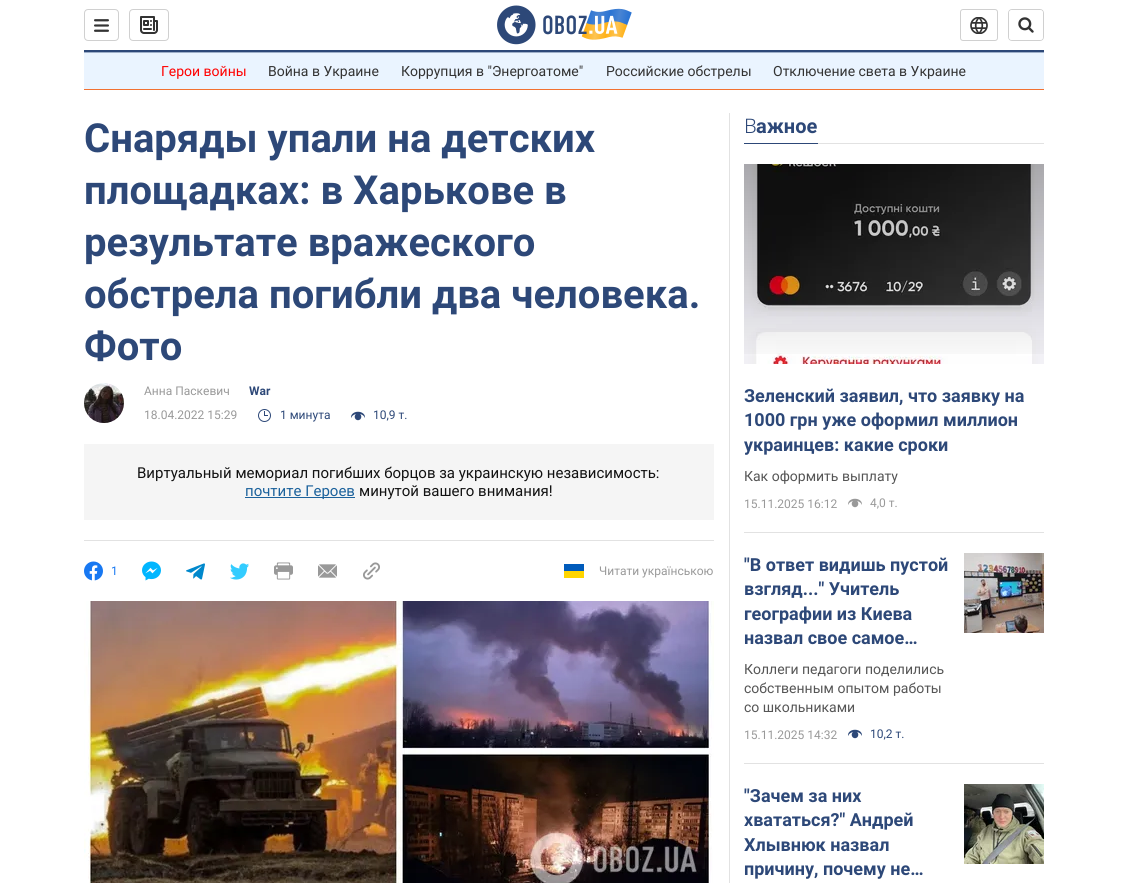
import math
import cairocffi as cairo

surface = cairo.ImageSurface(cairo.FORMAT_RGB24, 1127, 883)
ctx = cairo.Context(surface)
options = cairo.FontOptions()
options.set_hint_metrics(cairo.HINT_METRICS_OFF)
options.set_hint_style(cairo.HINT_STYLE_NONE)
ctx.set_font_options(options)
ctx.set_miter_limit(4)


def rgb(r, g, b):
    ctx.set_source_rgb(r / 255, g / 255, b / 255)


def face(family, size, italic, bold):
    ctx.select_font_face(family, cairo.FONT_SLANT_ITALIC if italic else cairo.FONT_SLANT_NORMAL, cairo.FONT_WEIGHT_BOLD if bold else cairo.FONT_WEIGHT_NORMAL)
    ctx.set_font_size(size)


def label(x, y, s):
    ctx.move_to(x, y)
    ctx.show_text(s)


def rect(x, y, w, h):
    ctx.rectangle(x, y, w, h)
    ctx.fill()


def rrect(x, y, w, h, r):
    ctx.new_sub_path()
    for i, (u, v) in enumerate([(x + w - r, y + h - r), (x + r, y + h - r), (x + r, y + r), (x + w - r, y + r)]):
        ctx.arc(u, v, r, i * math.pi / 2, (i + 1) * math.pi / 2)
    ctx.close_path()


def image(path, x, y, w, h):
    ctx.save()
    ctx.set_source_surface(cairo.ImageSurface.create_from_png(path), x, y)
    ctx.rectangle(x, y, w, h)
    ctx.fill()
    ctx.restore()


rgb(255, 255, 255)
ctx.paint()
rgb(45, 72, 120)
rect(84, 50, 960, 2)
rrect(84.5, 9.5, 34, 31, 3.5)
rgb(208, 208, 208)
ctx.set_line_width(1)
ctx.stroke()
image('image0.png', 94, 19, 15, 13)
rrect(129.5, 9.5, 39, 31, 3.5)
ctx.stroke()
image('image1.png', 140, 16, 18, 18)
image('image2.png', 497, 5, 135, 40)
rrect(960.5, 9.5, 37, 31, 2.5)
ctx.stroke()
image('image3.png', 970, 17, 18, 17)
rrect(1008.5, 9.5, 35, 31, 3.5)
ctx.stroke()
rgb(255, 255, 255)
rrect(1009, 10, 34, 30, 3)
ctx.fill()
image('image4.png', 1018, 17, 16, 16)
rgb(234, 244, 255)
rect(84, 53, 960, 36)
rgb(158, 175, 201)
rect(84, 52, 960, 1)
rgb(241, 113, 50)
rect(84, 89, 960, 1)
face('Roboto', 14, 0, 0)
rgb(255, 0, 0)
label(161, 76, 'Герои войны')
rgb(51, 51, 51)
label(268, 76, 'Война в Украине')
label(401, 76, 'Коррупция в "Энергоатоме"')
label(606, 76, 'Российские обстрелы')
label(773, 76, 'Отключение света в Украине')
rgb(226, 226, 226)
rect(84, 540, 630, 1)
face('Roboto', 40, 0, 1)
rgb(45, 72, 120)
label(84, 152, 'Снаряды упали на детских')
label(84, 204, 'площадках: в Харькове в')
label(84, 256, 'результате вражеского')
label(84, 308, 'обстрела погибли два человека.')
label(84, 360, 'Фото')
image('image5.png', 84, 383, 40, 40)
face('Roboto', 12, 0, 0)
rgb(153, 153, 153)
label(144, 395, 'Анна Паскевич')
face('Roboto', 12, 0, 1)
rgb(45, 72, 120)
label(249, 395, 'War')
face('Roboto', 12, 0, 0)
rgb(153, 153, 153)
label(144, 419, '18.04.2022 15:29')
image('image6.png', 258, 409, 13, 13)
rgb(45, 72, 120)
label(280, 419, '1 минута')
image('image7.png', 351, 411, 14, 10)
label(373, 419, '10,9 т.')
rgb(245, 245, 245)
rect(84, 444, 630, 76)
face('Roboto', 15, 0, 0)
rgb(18, 18, 18)
label(137, 478, 'Виртуальный мемориал погибших борцов за украинскую независимость:')
rgb(28, 98, 156)
rect(245, 497, 110, 1)
label(245, 496, 'почтите Героев')
rgb(18, 18, 18)
label(359, 496, 'минутой вашего внимания!')
image('image8.png', 84, 561, 19, 20)
face('Roboto', 12, 0, 0)
rgb(23, 120, 242)
label(111, 575, '1')
image('image9.png', 142, 561, 19, 20)
image('image10.png', 186, 563, 19, 17)
image('image11.png', 230, 563, 19, 17)
image('image12.png', 274, 562, 19, 18)
image('image13.png', 318, 564, 19, 14)
image('image14.png', 363, 562, 17, 18)
rgb(0, 91, 187)
rect(564, 564, 20, 7)
rgb(255, 213, 0)
rect(564, 571, 20, 7)
rgb(153, 153, 153)
label(599, 575, 'Читати українською')
image('image15.png', 84, 601, 630, 282)
rgb(226, 226, 226)
rect(729, 113, 1, 770)
rect(818, 143, 226, 1)
face('Noto Sans Light', 20, 0, 0)
rgb(45, 72, 120)
label(744, 133, 'В')
face('Roboto', 20, 0, 1)
label(756, 133, 'ажное')
rect(744, 143, 74, 1)
rgb(226, 226, 226)
rect(744, 532, 300, 1)
image('image16.png', 744, 164, 300, 200)
gradient = cairo.LinearGradient(894, 164, 894, 369)
gradient.add_color_stop_rgba(0, 0, 0, 0, 0.3)
gradient.add_color_stop_rgba(1, 0, 0, 0, 0)
ctx.set_source(gradient)
rect(744, 164, 300, 190)
face('Roboto', 18, 0, 1)
rgb(45, 72, 120)
label(744, 402, 'Зеленский заявил, что заявку на')
label(744, 426, '1000 грн уже оформил миллион')
label(744, 451, 'украинцев: какие сроки')
face('Roboto', 14, 0, 0)
rgb(85, 85, 85)
label(744, 481, 'Как оформить выплату')
face('Roboto', 12, 0, 0)
rgb(153, 153, 153)
label(744, 508, '15.11.2025 16:12')
image('image17.png', 848, 498, 14, 10)
label(870, 507, '4,0 т.')
rgb(226, 226, 226)
rect(744, 763, 300, 1)
face('Roboto', 18, 0, 1)
rgb(45, 72, 120)
label(744, 571, '"В ответ видишь пустой')
label(744, 595, 'взгляд..." Учитель')
label(744, 620, 'географии из Киева')
label(744, 644, 'назвал свое самое…')
face('Roboto', 14, 0, 0)
rgb(85, 85, 85)
label(744, 674, 'Коллеги педагоги поделились')
label(744, 693, 'собственным опытом работы')
label(744, 712, 'со школьниками')
face('Roboto', 12, 0, 0)
rgb(153, 153, 153)
label(744, 739, '15.11.2025 14:32')
image('image7.png', 848, 729, 14, 10)
rgb(45, 72, 120)
label(870, 738, '10,2 т.')
image('image18.png', 964, 553, 80, 80)
face('Roboto', 18, 0, 1)
label(744, 802, '"Зачем за них')
label(744, 826, 'хвататься?" Андрей')
label(744, 851, 'Хлывнюк назвал')
label(744, 875, 'причину, почему не…')
image('image19.png', 964, 784, 80, 80)
surface.write_to_png('render.png')
